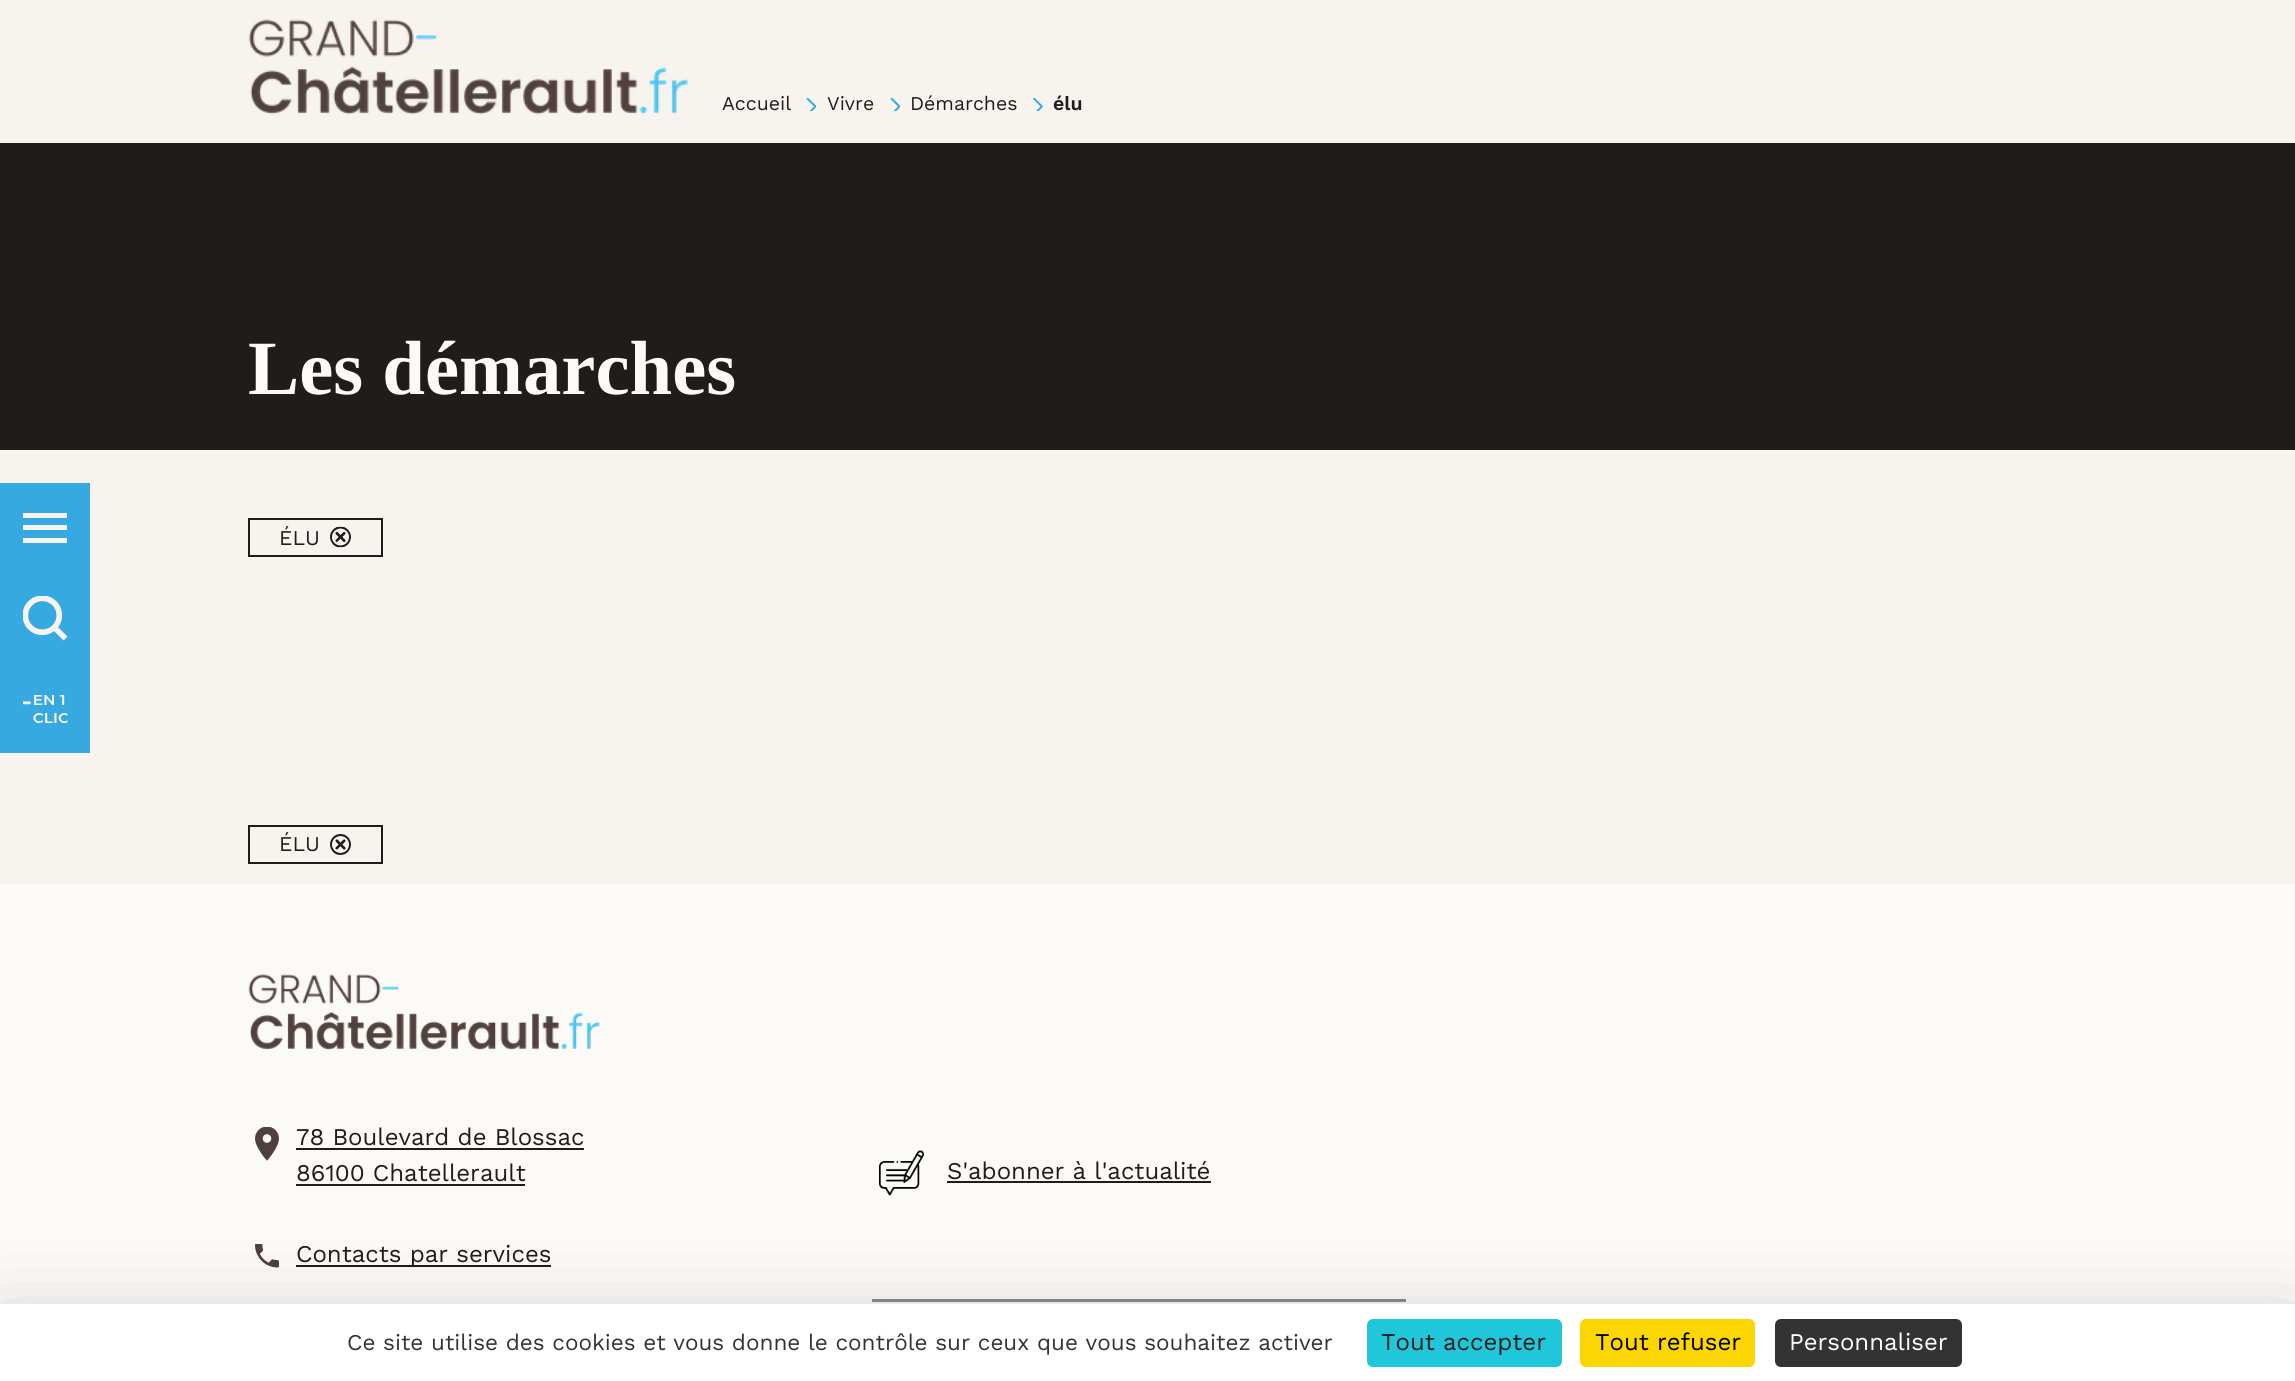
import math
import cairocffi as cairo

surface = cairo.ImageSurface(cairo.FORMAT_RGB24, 2295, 1381)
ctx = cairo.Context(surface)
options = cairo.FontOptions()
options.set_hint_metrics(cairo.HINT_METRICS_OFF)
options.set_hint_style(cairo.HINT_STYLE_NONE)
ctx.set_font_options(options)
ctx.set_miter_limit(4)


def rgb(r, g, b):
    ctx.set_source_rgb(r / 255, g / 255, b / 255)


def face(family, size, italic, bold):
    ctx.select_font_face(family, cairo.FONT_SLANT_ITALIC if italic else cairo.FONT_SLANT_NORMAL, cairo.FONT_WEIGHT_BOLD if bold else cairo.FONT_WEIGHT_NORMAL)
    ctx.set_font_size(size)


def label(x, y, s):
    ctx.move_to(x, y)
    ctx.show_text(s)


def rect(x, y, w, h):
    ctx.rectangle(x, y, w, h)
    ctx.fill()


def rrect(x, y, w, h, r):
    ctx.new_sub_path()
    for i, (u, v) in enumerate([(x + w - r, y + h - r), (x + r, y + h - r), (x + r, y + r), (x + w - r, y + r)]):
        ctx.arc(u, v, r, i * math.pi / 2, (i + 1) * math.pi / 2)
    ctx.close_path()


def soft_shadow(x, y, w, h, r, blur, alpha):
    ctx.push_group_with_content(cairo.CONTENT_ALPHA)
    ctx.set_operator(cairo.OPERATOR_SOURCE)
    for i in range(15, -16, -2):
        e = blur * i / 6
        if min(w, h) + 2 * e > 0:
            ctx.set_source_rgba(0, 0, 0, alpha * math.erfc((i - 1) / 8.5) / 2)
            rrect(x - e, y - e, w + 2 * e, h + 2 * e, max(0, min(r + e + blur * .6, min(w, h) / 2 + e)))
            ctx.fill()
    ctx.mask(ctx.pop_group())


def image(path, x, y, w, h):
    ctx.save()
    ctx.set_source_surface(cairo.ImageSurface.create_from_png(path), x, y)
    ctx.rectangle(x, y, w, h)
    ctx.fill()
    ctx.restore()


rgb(247, 243, 239)
ctx.paint()
image('image0.png', 248, 19, 440, 96)
face('Work Sans', 19.5, 0, 0)
rgb(31, 29, 26)
label(722, 110, 'Accueil')
image('image1.png', 806, 98, 10, 13)
label(827, 110, 'Vivre')
image('image1.png', 890, 98, 10, 13)
label(910, 110, 'Démarches')
image('image2.png', 1033, 98, 10, 13)
face('Work Sans SemiBold', 19.5, 0, 0)
label(1053, 110, 'élu')
rect(0, 143, 2295, 307)
face('Liberation Serif', 76.75, 0, 1)
rgb(252, 250, 247)
label(248, 394, 'Les démarches')
rgb(54, 169, 225)
rect(0, 483, 90, 270)
rgb(247, 243, 239)
ctx.new_path()
ctx.move_to(23, 543)
ctx.line_to(67, 543)
ctx.line_to(67, 538)
ctx.line_to(23, 538)
ctx.close_path()
ctx.move_to(23, 530)
ctx.line_to(67, 530)
ctx.line_to(67, 525)
ctx.line_to(23, 525)
ctx.close_path()
ctx.move_to(23, 513)
ctx.line_to(23, 518)
ctx.line_to(67, 518)
ctx.line_to(67, 513)
ctx.close_path()
ctx.fill()
image('image3.png', 23, 596, 45, 45)
image('image4.png', 23, 695, 45, 28)
ctx.rectangle(249, 519, 133, 37)
rgb(31, 29, 26)
ctx.stroke()
face('Work Sans', 21, 0, 0)
label(279, 545, 'ÉLU')
image('image5.png', 330, 526, 21, 22)
ctx.rectangle(249, 826, 133, 37)
ctx.stroke()
label(279, 851, 'ÉLU')
image('image6.png', 330, 834, 21, 21)
rgb(252, 250, 247)
rect(0, 884, 2295, 420)
image('image7.png', 248, 974, 352, 76)
image('image8.png', 255, 1127, 24, 34)
face('Work Sans', 24, 0, 0)
rgb(31, 29, 26)
label(296, 1145, '78 Boulevard de Blossac')
rect(296, 1148, 288, 2)
label(296, 1181, '86100 Chatellerault')
rect(296, 1184, 229, 2)
image('image9.png', 255, 1244, 24, 24)
rect(296, 1265, 255, 2)
label(296, 1262, 'Contacts par services')
image('image10.png', 879, 1150, 45, 46)
label(947, 1179, 'S\'abonner à l\'actualité')
rect(947, 1181, 264, 2)
rgb(142, 140, 137)
rect(872, 1299, 534, 3)
rgb(0, 0, 0)
soft_shadow(0, 1334, 2295, 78, 0, 45, 0.25)
rgb(255, 255, 255)
rect(0, 1304, 2295, 77)
face('Work Sans', 22.5, 0, 0)
rgb(51, 51, 51)
label(347, 1350, 'Ce site utilise des cookies et vous donne le contrôle sur ceux que vous souhaitez activer')
rgb(32, 198, 217)
rrect(1367, 1319, 195, 48, 6)
ctx.fill()
face('Work Sans', 24, 0, 0)
rgb(31, 29, 26)
label(1381, 1350, 'Tout accepter')
rgb(251, 214, 0)
rrect(1580, 1319, 175, 48, 6)
ctx.fill()
rgb(0, 0, 0)
label(1595, 1350, 'Tout refuser')
rgb(51, 51, 51)
rrect(1775, 1319, 187, 48, 6)
ctx.fill()
rgb(255, 255, 255)
label(1789, 1350, 'Personnaliser')
surface.write_to_png('render.png')
